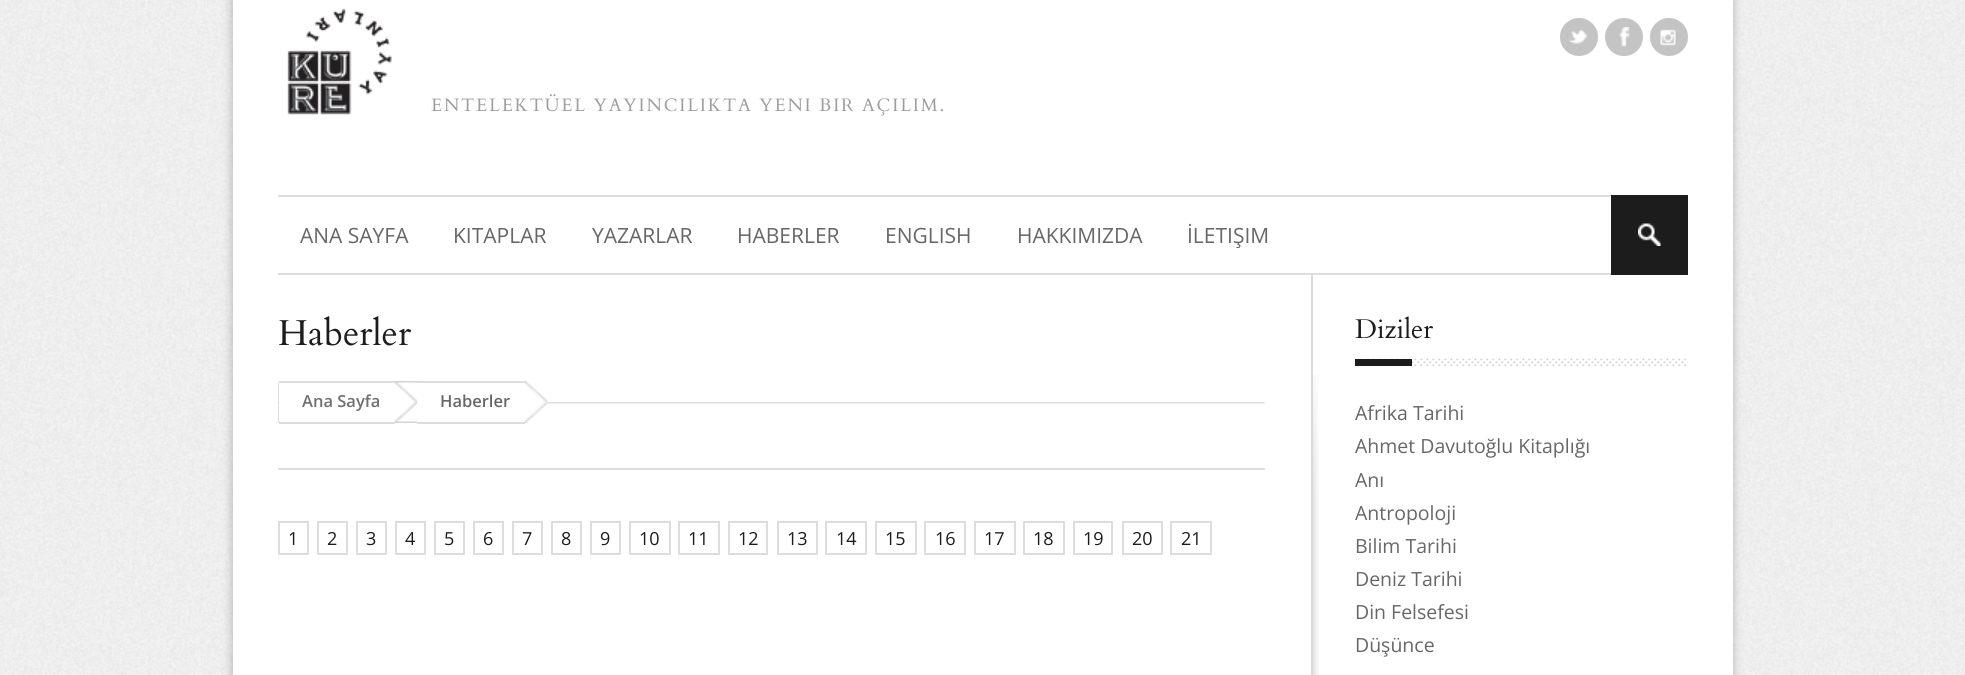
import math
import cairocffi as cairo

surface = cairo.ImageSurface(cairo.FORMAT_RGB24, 1965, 675)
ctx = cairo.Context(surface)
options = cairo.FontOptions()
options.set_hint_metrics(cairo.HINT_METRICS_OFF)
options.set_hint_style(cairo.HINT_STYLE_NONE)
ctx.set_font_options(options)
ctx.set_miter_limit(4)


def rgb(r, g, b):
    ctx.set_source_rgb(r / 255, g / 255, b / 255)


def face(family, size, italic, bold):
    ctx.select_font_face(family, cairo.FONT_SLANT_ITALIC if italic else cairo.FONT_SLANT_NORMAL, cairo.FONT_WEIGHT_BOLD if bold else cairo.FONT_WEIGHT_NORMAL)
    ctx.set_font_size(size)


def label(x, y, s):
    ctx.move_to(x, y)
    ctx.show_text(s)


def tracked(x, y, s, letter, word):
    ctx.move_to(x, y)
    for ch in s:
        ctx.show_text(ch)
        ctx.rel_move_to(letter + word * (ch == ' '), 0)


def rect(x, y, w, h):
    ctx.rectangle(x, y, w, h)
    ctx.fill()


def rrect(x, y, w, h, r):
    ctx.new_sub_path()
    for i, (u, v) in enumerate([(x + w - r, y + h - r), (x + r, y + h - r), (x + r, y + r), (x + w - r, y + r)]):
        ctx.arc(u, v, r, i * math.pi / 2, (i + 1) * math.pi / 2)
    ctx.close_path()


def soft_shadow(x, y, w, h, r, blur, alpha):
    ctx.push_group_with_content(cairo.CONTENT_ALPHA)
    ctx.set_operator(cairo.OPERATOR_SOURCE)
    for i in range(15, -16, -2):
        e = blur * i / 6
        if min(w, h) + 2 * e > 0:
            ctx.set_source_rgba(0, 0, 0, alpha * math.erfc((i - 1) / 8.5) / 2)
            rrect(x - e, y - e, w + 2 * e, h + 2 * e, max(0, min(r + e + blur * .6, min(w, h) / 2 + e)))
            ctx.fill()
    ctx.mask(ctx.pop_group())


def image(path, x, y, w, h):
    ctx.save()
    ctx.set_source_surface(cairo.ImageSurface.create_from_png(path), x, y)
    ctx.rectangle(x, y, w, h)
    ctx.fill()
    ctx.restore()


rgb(255, 255, 255)
ctx.paint()
image('image0.png', 0, 0, 1965, 675)
rgb(0, 0, 0)
soft_shadow(231, 0, 1503, 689, 0, 4.5, 0.2)
rgb(255, 255, 255)
rect(233, 0, 1500, 675)
rgb(196, 196, 196)
ctx.arc(1579, 37, 19, 0, 2 * math.pi)
ctx.fill()
image('image1.png', 1569, 29, 19, 15)
ctx.arc(1624, 37, 19, 0, 2 * math.pi)
ctx.fill()
image('image2.png', 1619, 27, 11, 20)
ctx.arc(1669, 37, 19, 0, 2 * math.pi)
ctx.fill()
image('image3.png', 1660, 29, 16, 17)
image('image4.png', 287, 8, 105, 107)
face('Cardo', 18, 0, 0)
rgb(160, 157, 157)
tracked(431, 111, 'ENTELEKTÜEL YAYINCILIKTA YENI BIR AÇILIM.', 1.8, 0)
rgb(223, 220, 220)
rect(278, 195, 1333, 2)
rect(278, 273, 1333, 2)
face('Open Sans', 21, 0, 0)
rgb(102, 103, 103)
label(300, 243, 'ANA SAYFA')
label(453, 243, 'KITAPLAR')
label(592, 243, 'YAZARLAR')
label(737, 243, 'HABERLER')
label(885, 243, 'ENGLISH')
label(1017, 243, 'HAKKIMIZDA')
label(1187, 243, 'İLETIŞIM')
rgb(28, 28, 28)
rect(1611, 195, 77, 80)
image('image5.png', 1638, 223, 23, 23)
face('Cardo', 36, 0, 0)
label(278, 345, 'Haberler')
image('image6.png', 277, 402, 988, 2)
rgb(223, 220, 220)
rect(278, 383, 1, 40)
rgb(255, 255, 255)
rect(279, 402, 269, 2)
image('image7.png', 394, 381, 23, 42)
rgb(223, 220, 220)
rect(279, 381, 116, 2)
rect(279, 422, 116, 2)
face('Open Sans SemiBold', 16.5, 0, 0)
rgb(112, 112, 112)
label(302, 407, 'Ana Sayfa')
image('image8.png', 525, 381, 23, 42)
rgb(223, 220, 220)
rect(417, 381, 108, 2)
rect(417, 422, 108, 2)
rgb(102, 103, 103)
label(440, 407, 'Haberler')
rgb(223, 220, 220)
rect(278, 468, 987, 2)
ctx.rectangle(279, 522, 29, 32)
ctx.stroke()
face('Open Sans', 18, 0, 0)
rgb(28, 28, 28)
label(288, 545, '1')
ctx.rectangle(318, 522, 29, 32)
rgb(223, 220, 220)
ctx.stroke()
rgb(28, 28, 28)
label(327, 545, '2')
ctx.rectangle(357, 522, 29, 32)
rgb(223, 220, 220)
ctx.stroke()
rgb(28, 28, 28)
label(366, 545, '3')
ctx.rectangle(396, 522, 29, 32)
rgb(223, 220, 220)
ctx.stroke()
rgb(28, 28, 28)
label(405, 545, '4')
ctx.rectangle(435, 522, 29, 32)
rgb(223, 220, 220)
ctx.stroke()
rgb(28, 28, 28)
label(444, 545, '5')
ctx.rectangle(474, 522, 29, 32)
rgb(223, 220, 220)
ctx.stroke()
rgb(28, 28, 28)
label(483, 545, '6')
ctx.rectangle(513, 522, 29, 32)
rgb(223, 220, 220)
ctx.stroke()
rgb(28, 28, 28)
label(522, 545, '7')
ctx.rectangle(552, 522, 29, 32)
rgb(223, 220, 220)
ctx.stroke()
rgb(28, 28, 28)
label(561, 545, '8')
ctx.rectangle(591, 522, 29, 32)
rgb(223, 220, 220)
ctx.stroke()
rgb(28, 28, 28)
label(600, 545, '9')
ctx.rectangle(630, 522, 40, 32)
rgb(223, 220, 220)
ctx.stroke()
rgb(28, 28, 28)
label(639, 545, '10')
ctx.rectangle(679, 522, 40, 32)
rgb(223, 220, 220)
ctx.stroke()
rgb(28, 28, 28)
label(688, 545, '11')
ctx.rectangle(729, 522, 38, 32)
rgb(223, 220, 220)
ctx.stroke()
rgb(28, 28, 28)
label(738, 545, '12')
ctx.rectangle(778, 522, 39, 32)
rgb(223, 220, 220)
ctx.stroke()
rgb(28, 28, 28)
label(787, 545, '13')
ctx.rectangle(826, 522, 40, 32)
rgb(223, 220, 220)
ctx.stroke()
rgb(28, 28, 28)
label(836, 545, '14')
ctx.rectangle(876, 522, 40, 32)
rgb(223, 220, 220)
ctx.stroke()
rgb(28, 28, 28)
label(885, 545, '15')
ctx.rectangle(925, 522, 40, 32)
rgb(223, 220, 220)
ctx.stroke()
rgb(28, 28, 28)
label(935, 545, '16')
ctx.rectangle(975, 522, 40, 32)
rgb(223, 220, 220)
ctx.stroke()
rgb(28, 28, 28)
label(984, 545, '17')
ctx.rectangle(1024, 522, 40, 32)
rgb(223, 220, 220)
ctx.stroke()
rgb(28, 28, 28)
label(1033, 545, '18')
ctx.rectangle(1074, 522, 38, 32)
rgb(223, 220, 220)
ctx.stroke()
rgb(28, 28, 28)
label(1083, 545, '19')
ctx.rectangle(1123, 522, 39, 32)
rgb(223, 220, 220)
ctx.stroke()
rgb(28, 28, 28)
label(1132, 545, '20')
ctx.rectangle(1171, 522, 40, 32)
rgb(223, 220, 220)
ctx.stroke()
rgb(28, 28, 28)
label(1181, 545, '21')
image('image9.png', 1313, 375, 6, 300)
rgb(218, 218, 218)
rect(1311, 275, 2, 400)
face('Cardo', 27, 0, 0)
rgb(28, 28, 28)
label(1355, 338, 'Diziler')
image('image10.png', 1354, 358, 334, 8)
rect(1355, 359, 57, 7)
face('Open Sans', 19.5, 0, 0)
rgb(102, 103, 103)
label(1355, 420, 'Afrika Tarihi')
label(1355, 453, 'Ahmet Davutoğlu Kitaplığı')
label(1355, 487, 'Anı')
label(1355, 520, 'Antropoloji')
label(1355, 553, 'Bilim Tarihi')
label(1355, 586, 'Deniz Tarihi')
label(1355, 619, 'Din Felsefesi')
label(1355, 652, 'Düşünce')
surface.write_to_png('render.png')
